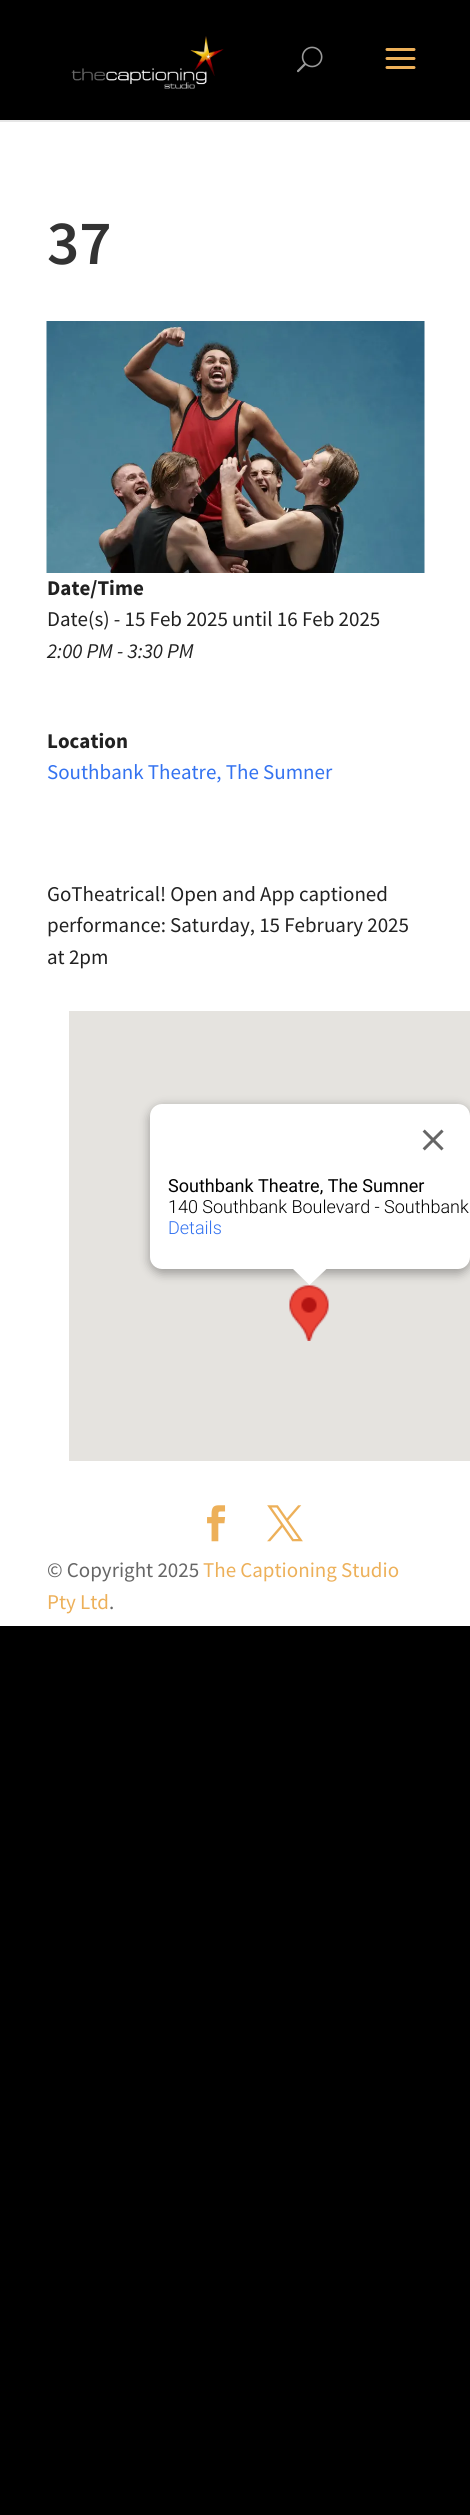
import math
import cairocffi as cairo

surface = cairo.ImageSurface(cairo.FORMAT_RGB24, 470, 2515)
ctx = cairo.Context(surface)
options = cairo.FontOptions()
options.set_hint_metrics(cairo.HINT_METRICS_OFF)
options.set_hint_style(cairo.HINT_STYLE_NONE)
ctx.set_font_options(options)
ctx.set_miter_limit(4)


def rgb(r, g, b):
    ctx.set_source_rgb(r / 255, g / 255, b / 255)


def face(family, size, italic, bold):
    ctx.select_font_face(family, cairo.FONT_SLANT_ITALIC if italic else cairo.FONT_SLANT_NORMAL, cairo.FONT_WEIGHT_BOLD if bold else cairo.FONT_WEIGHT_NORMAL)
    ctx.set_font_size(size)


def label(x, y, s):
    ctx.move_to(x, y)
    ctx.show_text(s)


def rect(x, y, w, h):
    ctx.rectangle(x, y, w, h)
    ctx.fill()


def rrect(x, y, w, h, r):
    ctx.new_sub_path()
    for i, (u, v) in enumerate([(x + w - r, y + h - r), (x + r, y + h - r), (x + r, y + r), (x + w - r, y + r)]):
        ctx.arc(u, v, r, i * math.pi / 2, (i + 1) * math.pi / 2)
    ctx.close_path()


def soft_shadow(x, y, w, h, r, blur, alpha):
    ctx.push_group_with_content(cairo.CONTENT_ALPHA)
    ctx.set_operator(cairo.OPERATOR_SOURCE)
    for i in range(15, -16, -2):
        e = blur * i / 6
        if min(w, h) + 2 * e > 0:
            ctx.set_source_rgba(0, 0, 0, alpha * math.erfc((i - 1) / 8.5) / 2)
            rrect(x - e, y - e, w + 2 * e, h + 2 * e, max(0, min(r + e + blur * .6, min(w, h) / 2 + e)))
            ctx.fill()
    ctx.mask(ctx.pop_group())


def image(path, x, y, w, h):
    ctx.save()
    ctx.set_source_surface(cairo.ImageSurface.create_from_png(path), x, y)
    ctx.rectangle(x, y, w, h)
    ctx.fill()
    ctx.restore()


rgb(0, 0, 0)
ctx.paint()
rgb(230, 230, 230)
rect(0, 120, 470, 2)
image('image0.png', 71, 36, 153, 53)
image('image1.png', 297, 46, 26, 27)
image('image2.png', 385, 48, 31, 21)
rgb(255, 255, 255)
rect(0, 122, 470, 1504)
face('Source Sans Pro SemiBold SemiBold', 63, 0, 0)
rgb(51, 51, 51)
label(47, 264, '37')
image('image3.png', 46, 321, 379, 252)
face('Source Sans Pro', 21, 0, 1)
rgb(33, 33, 33)
label(47, 595, 'Date/Time')
face('Source Sans Pro', 21, 0, 0)
label(47, 626, 'Date(s) - 15 Feb 2025 until 16 Feb 2025')
face('Source Sans Pro', 21, 1, 0)
label(47, 658, '2:00 PM - 3:30 PM')
face('Source Sans Pro', 21, 0, 1)
label(47, 748, 'Location')
face('Source Sans Pro', 21, 0, 0)
rgb(51, 114, 240)
label(47, 779, 'Southbank Theatre, The Sumner')
rgb(33, 33, 33)
label(47, 901, 'GoTheatrical! Open and App captioned')
label(47, 932, 'performance: Saturday, 15 February 2025')
label(47, 964, 'at 2pm')
rgb(229, 227, 223)
rect(69, 1011, 401, 450)
image('image5.png', 289, 1285, 40, 56)
rgb(0, 0, 0)
soft_shadow(149, 1106, 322, 168, 14, 5, 0.3)
rgb(255, 255, 255)
rrect(150, 1104, 320, 165, 12)
ctx.fill()
image('image4.png', 422, 1129, 22, 22)
face('Roboto', 18, 0, 0)
rgb(0, 0, 0)
label(168, 1192, 'Southbank Theatre, The Sumner')
face('Roboto Light', 18, 0, 0)
label(168, 1213, '140 Southbank Boulevard - Southbank')
rgb(51, 114, 240)
label(168, 1234, 'Details')
rgb(255, 255, 255)
ctx.new_path()
ctx.move_to(327.5, 1268)
ctx.line_to(292, 1268)
ctx.line_to(309.5, 1285)
ctx.close_path()
ctx.fill()
image('image6.png', 207, 1505, 19, 37)
image('image7.png', 267, 1505, 36, 37)
face('Source Sans Pro', 21, 0, 0)
rgb(102, 102, 102)
label(47, 1577, '© Copyright 2025')
rgb(237, 176, 89)
label(203, 1577, 'The Captioning Studio')
label(47, 1609, 'Pty Ltd')
rgb(102, 102, 102)
label(109, 1609, '.')
surface.write_to_png('render.png')
